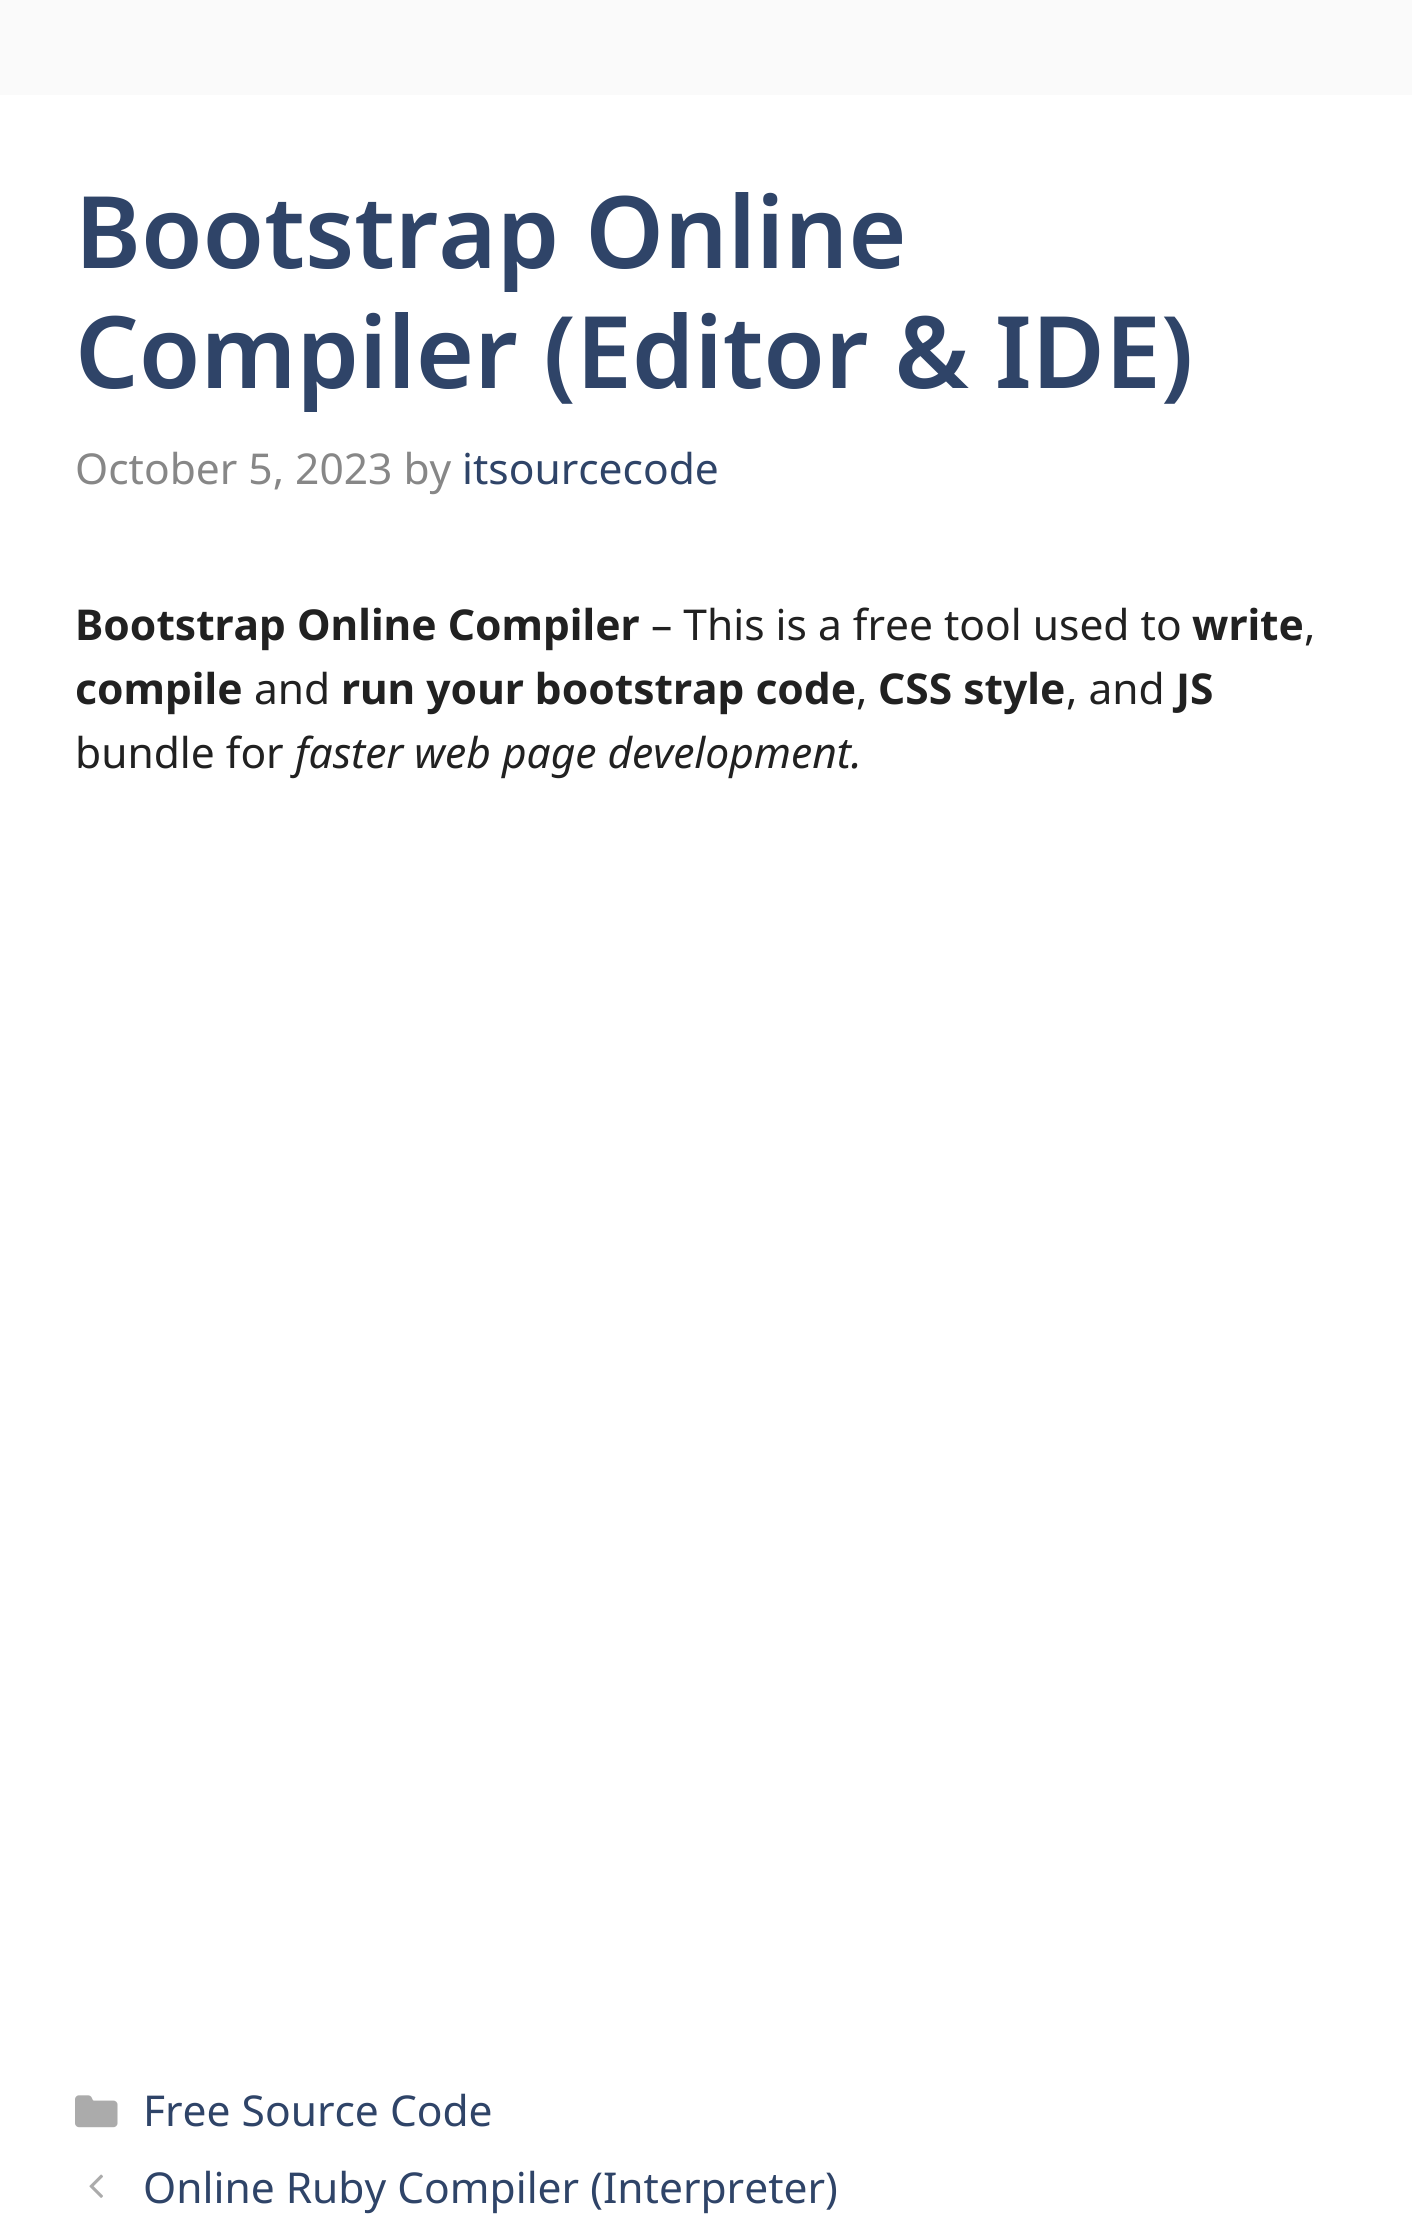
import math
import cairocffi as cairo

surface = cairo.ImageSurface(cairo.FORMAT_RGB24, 1412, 2231)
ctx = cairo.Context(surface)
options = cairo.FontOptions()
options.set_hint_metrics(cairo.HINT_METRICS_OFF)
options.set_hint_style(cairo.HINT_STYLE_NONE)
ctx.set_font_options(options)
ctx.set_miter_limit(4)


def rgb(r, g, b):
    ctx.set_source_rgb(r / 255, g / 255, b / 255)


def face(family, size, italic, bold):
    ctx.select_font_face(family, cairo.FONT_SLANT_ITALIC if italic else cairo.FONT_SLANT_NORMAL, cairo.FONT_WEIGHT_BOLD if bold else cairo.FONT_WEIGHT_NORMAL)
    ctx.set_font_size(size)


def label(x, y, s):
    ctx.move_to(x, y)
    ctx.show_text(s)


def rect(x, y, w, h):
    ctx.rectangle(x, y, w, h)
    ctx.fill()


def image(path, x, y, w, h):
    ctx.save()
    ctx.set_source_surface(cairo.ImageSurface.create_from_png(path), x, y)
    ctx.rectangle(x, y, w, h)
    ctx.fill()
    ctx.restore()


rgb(250, 250, 250)
ctx.paint()
rgb(255, 255, 255)
rect(0, 95, 1412, 2136)
face('Noto Sans SemiBold', 100, 0, 0)
rgb(47, 68, 104)
label(75, 268, 'Bootstrap Online')
label(75, 388, 'Compiler (Editor & IDE)')
face('Noto Sans', 42.5, 0, 0)
rgb(135, 135, 135)
label(75, 484, 'October 5, 2023 by')
rgb(47, 68, 104)
label(462, 484, 'itsourcecode')
face('Noto Sans', 42.5, 0, 1)
rgb(33, 33, 33)
label(75, 640, 'Bootstrap Online Compiler')
face('Noto Sans', 42.5, 0, 0)
label(651, 640, '– This is a free tool used to')
face('Noto Sans', 42.5, 0, 1)
label(1192, 640, 'write')
face('Noto Sans', 42.5, 0, 0)
label(1304, 640, ',')
face('Noto Sans', 42.5, 0, 1)
label(75, 704, 'compile')
face('Noto Sans', 42.5, 0, 0)
label(254, 704, 'and')
face('Noto Sans', 42.5, 0, 1)
label(341, 704, 'run your bootstrap code')
face('Noto Sans', 42.5, 0, 0)
label(856, 704, ',')
face('Noto Sans', 42.5, 0, 1)
label(878, 704, 'CSS style')
face('Noto Sans', 42.5, 0, 0)
label(1066, 704, ', and')
face('Noto Sans', 42.5, 0, 1)
label(1176, 704, 'JS')
face('Noto Sans', 42.5, 0, 0)
label(75, 768, 'bundle for')
face('Noto Sans', 42.5, 1, 0)
label(295, 768, 'faster web page development.')
image('image0.png', 75, 2095, 43, 33)
face('Noto Sans', 42.5, 0, 0)
rgb(47, 68, 104)
label(143, 2126, 'Free Source Code')
image('image1.png', 89, 2174, 14, 24)
label(143, 2203, 'Online Ruby Compiler (Interpreter)')
surface.write_to_png('render.png')
